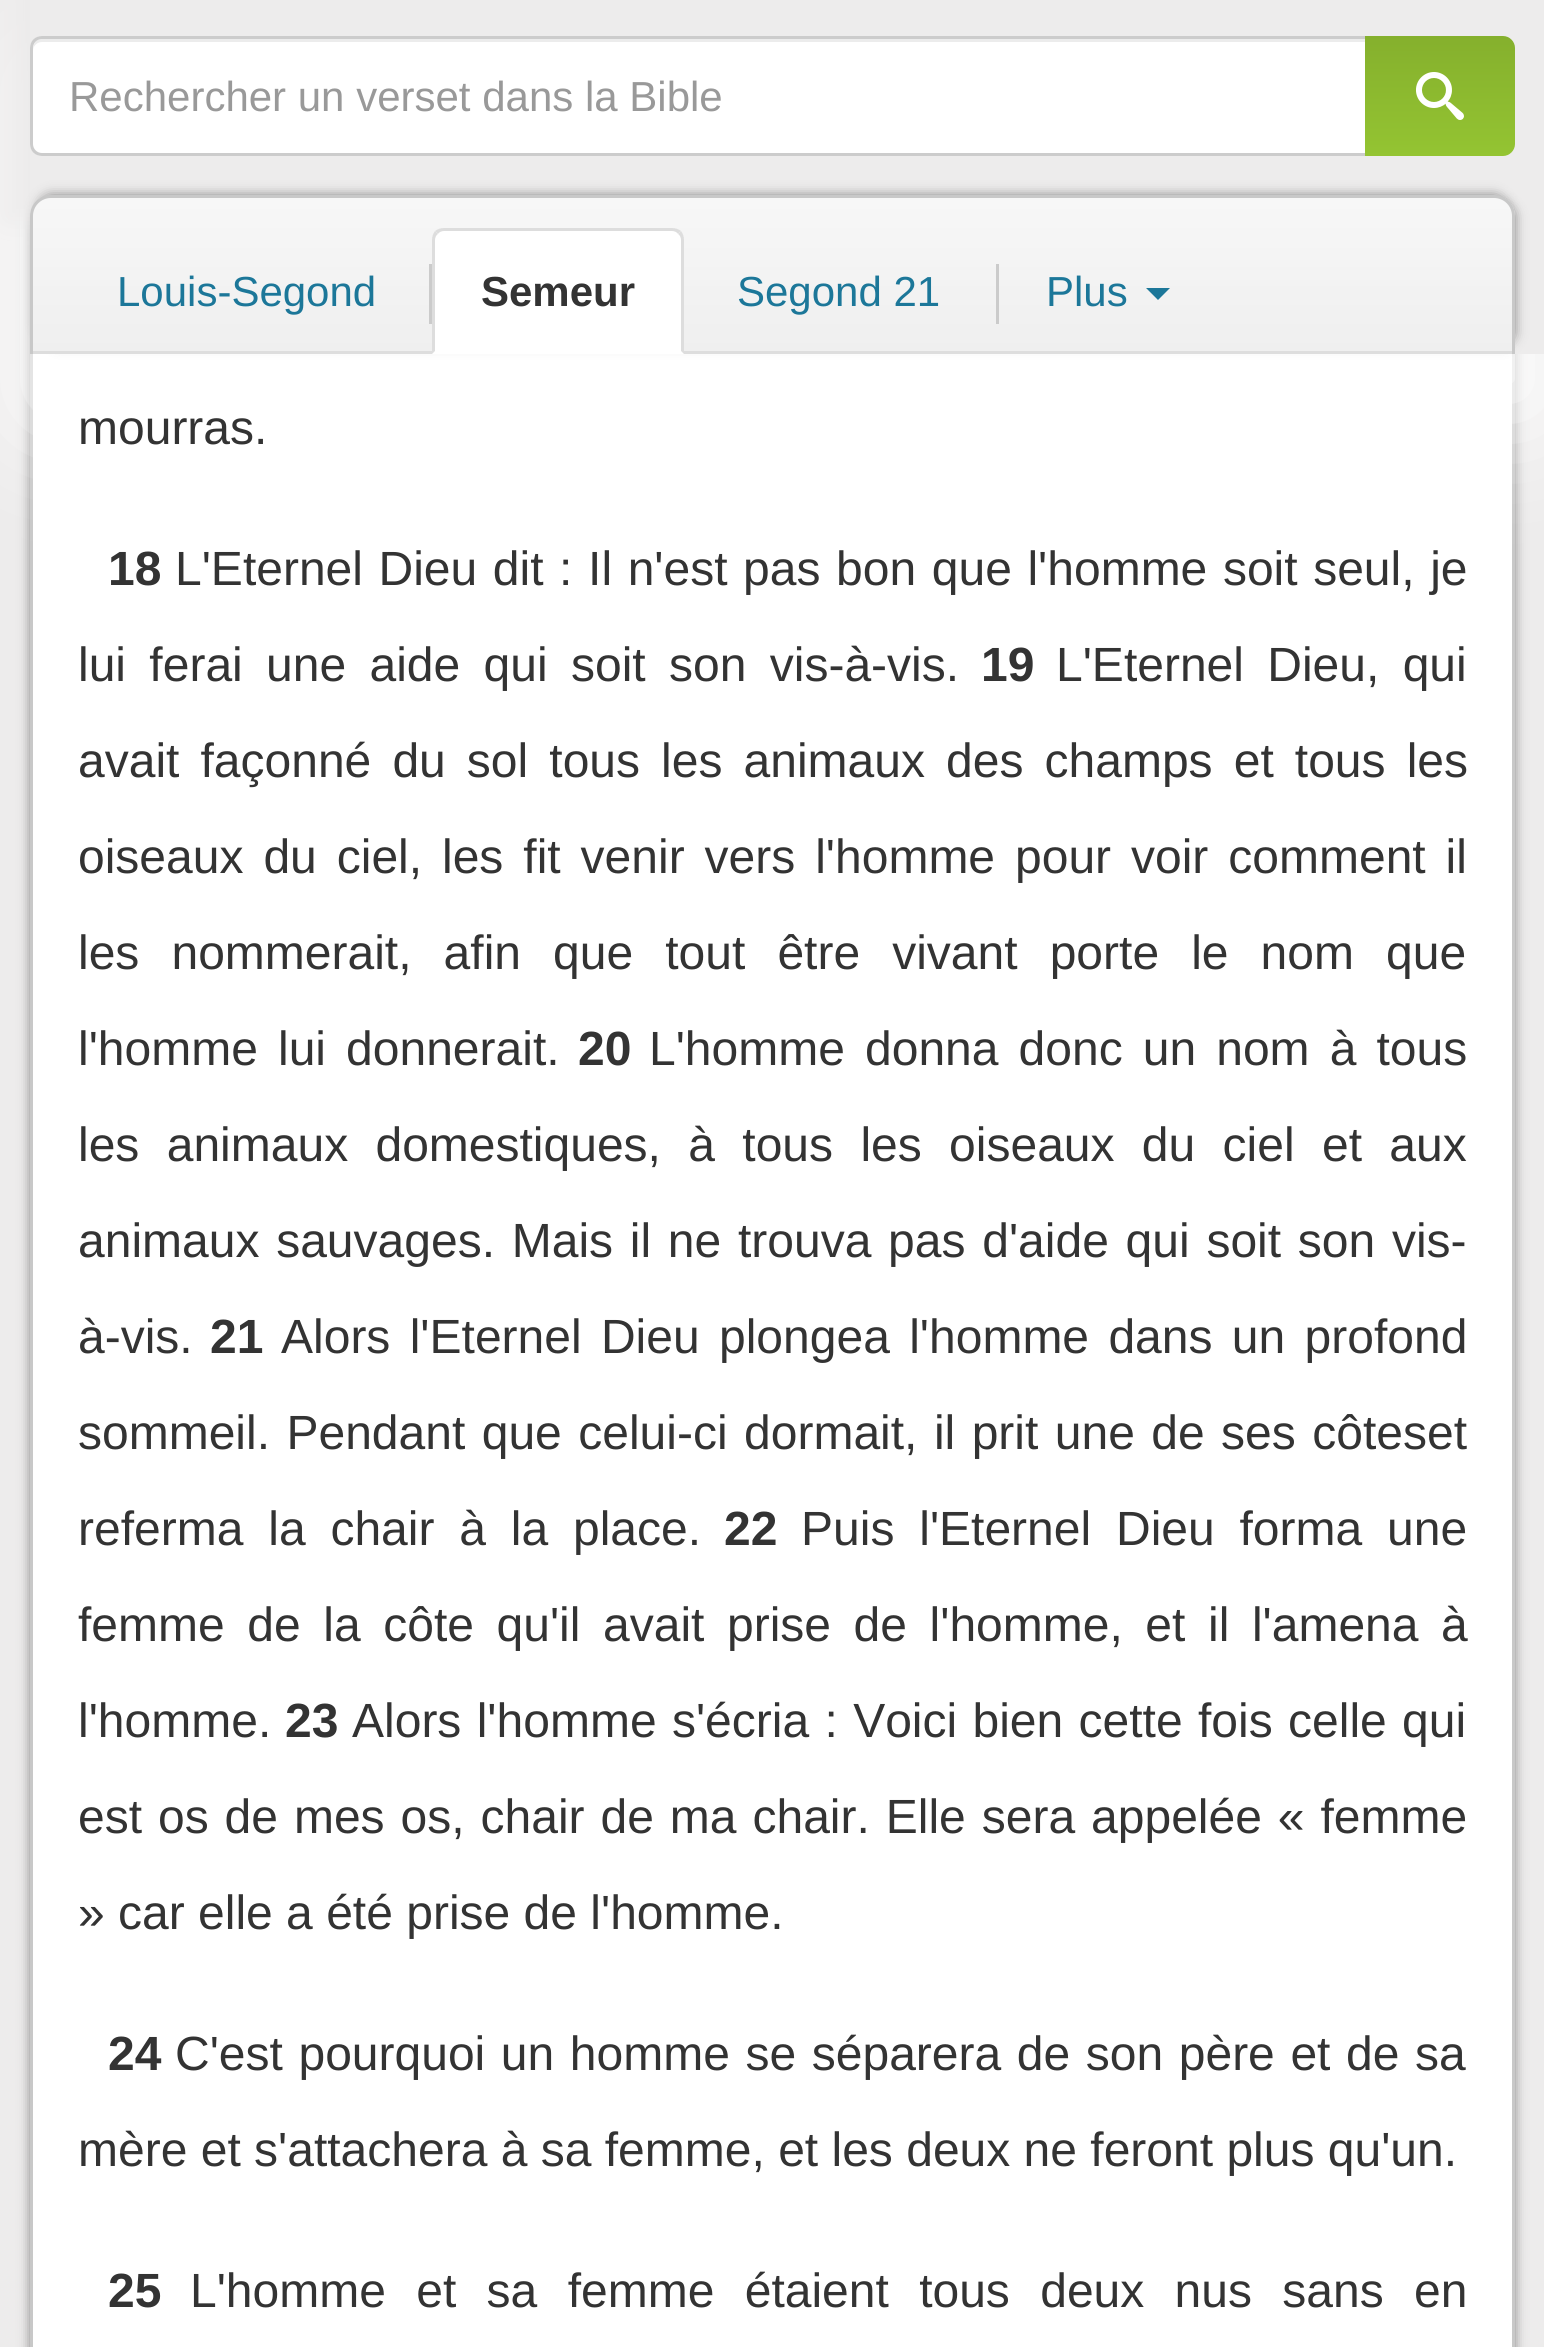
import math
import cairocffi as cairo

surface = cairo.ImageSurface(cairo.FORMAT_RGB24, 1544, 2347)
ctx = cairo.Context(surface)
options = cairo.FontOptions()
options.set_hint_metrics(cairo.HINT_METRICS_OFF)
options.set_hint_style(cairo.HINT_STYLE_NONE)
ctx.set_font_options(options)
ctx.set_miter_limit(4)


def rgb(r, g, b):
    ctx.set_source_rgb(r / 255, g / 255, b / 255)


def face(family, size, italic, bold):
    ctx.select_font_face(family, cairo.FONT_SLANT_ITALIC if italic else cairo.FONT_SLANT_NORMAL, cairo.FONT_WEIGHT_BOLD if bold else cairo.FONT_WEIGHT_NORMAL)
    ctx.set_font_size(size)


def label(x, y, s):
    ctx.move_to(x, y)
    ctx.show_text(s)


def tracked(x, y, s, letter, word):
    ctx.move_to(x, y)
    for ch in s:
        ctx.show_text(ch)
        ctx.rel_move_to(letter + word * (ch == ' '), 0)


def rect(x, y, w, h):
    ctx.rectangle(x, y, w, h)
    ctx.fill()


def rrect(x, y, w, h, r):
    ctx.new_sub_path()
    for i, (u, v) in enumerate([(x + w - r, y + h - r), (x + r, y + h - r), (x + r, y + r), (x + w - r, y + r)]):
        ctx.arc(u, v, r, i * math.pi / 2, (i + 1) * math.pi / 2)
    ctx.close_path()


def soft_shadow(x, y, w, h, r, blur, alpha):
    ctx.push_group_with_content(cairo.CONTENT_ALPHA)
    ctx.set_operator(cairo.OPERATOR_SOURCE)
    for i in range(15, -16, -2):
        e = blur * i / 6
        if min(w, h) + 2 * e > 0:
            ctx.set_source_rgba(0, 0, 0, alpha * math.erfc((i - 1) / 8.5) / 2)
            rrect(x - e, y - e, w + 2 * e, h + 2 * e, max(0, min(r + e + blur * .6, min(w, h) / 2 + e)))
            ctx.fill()
    ctx.mask(ctx.pop_group())


def image(path, x, y, w, h):
    ctx.save()
    ctx.set_source_surface(cairo.ImageSurface.create_from_png(path), x, y)
    ctx.rectangle(x, y, w, h)
    ctx.fill()
    ctx.restore()


rgb(237, 236, 236)
ctx.paint()
rgb(0, 0, 0)
soft_shadow(48, -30, 1467, 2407, 12, 6, 0.4)
soft_shadow(30, -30, 1467, 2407, 12, 6, 0.4)
soft_shadow(39, -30, 1467, 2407, 12, 6, 0.4)
rgb(255, 255, 255)
rect(33, 354, 1479, 1993)
rgb(200, 200, 200)
ctx.set_fill_rule(cairo.FILL_RULE_EVEN_ODD)
ctx.new_path()
ctx.move_to(30, -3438)
ctx.line_to(1515, -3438)
ctx.line_to(1515, 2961)
ctx.curve_to(1515, 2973, 1506, 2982, 1494, 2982)
ctx.line_to(51, 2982)
ctx.curve_to(39, 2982, 30, 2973, 30, 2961)
ctx.close_path()
ctx.move_to(33, -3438)
ctx.line_to(1512, -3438)
ctx.line_to(1512, 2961)
ctx.curve_to(1512, 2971, 1504, 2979, 1494, 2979)
ctx.line_to(51, 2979)
ctx.curve_to(41, 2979, 33, 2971, 33, 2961)
ctx.close_path()
ctx.fill()
rgb(255, 255, 255)
soft_shadow(30, 60, 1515, 354, 0, 60, 1)
rgb(237, 236, 236)
soft_shadow(6, -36, 1497, 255, 0, 12, 1)
rgb(237, 236, 236)
rect(30, 0, 1514, 354)
rgb(255, 255, 255)
ctx.new_path()
ctx.move_to(42, 36)
ctx.line_to(1368, 36)
ctx.line_to(1368, 156)
ctx.line_to(42, 156)
ctx.curve_to(35.5, 156, 30, 150.5, 30, 144)
ctx.line_to(30, 48)
ctx.curve_to(30, 41.5, 35.5, 36, 42, 36)
ctx.close_path()
ctx.fill()
rgb(236, 236, 236)
ctx.set_fill_rule(cairo.FILL_RULE_WINDING)
ctx.new_path()
ctx.move_to(42, 42)
ctx.line_to(1368, 42)
ctx.line_to(1368, 39)
ctx.line_to(42, 39)
ctx.curve_to(35, 39, 33, 45, 33, 51)
ctx.curve_to(33, 46, 37, 42, 42, 42)
ctx.close_path()
ctx.fill()
rgb(204, 204, 204)
ctx.set_fill_rule(cairo.FILL_RULE_EVEN_ODD)
ctx.new_path()
ctx.move_to(42, 36)
ctx.line_to(1368, 36)
ctx.line_to(1368, 156)
ctx.line_to(42, 156)
ctx.curve_to(35, 156, 30, 151, 30, 144)
ctx.line_to(30, 48)
ctx.curve_to(30, 41, 35, 36, 42, 36)
ctx.close_path()
ctx.move_to(42, 39)
ctx.line_to(1368, 39)
ctx.line_to(1368, 153)
ctx.line_to(42, 153)
ctx.curve_to(37, 153, 33, 149, 33, 144)
ctx.line_to(33, 48)
ctx.curve_to(33, 43, 37, 39, 42, 39)
ctx.close_path()
ctx.fill()
face('Liberation Sans', 42, 0, 0)
rgb(153, 153, 153)
label(69, 111, 'Rechercher un verset dans la Bible')
gradient = cairo.LinearGradient(1440, 36, 1440, 156)
gradient.add_color_stop_rgba(0, 0.522, 0.69, 0.176, 1)
gradient.add_color_stop_rgba(1, 0.58, 0.769, 0.196, 1)
ctx.set_source(gradient)
ctx.new_path()
ctx.move_to(1365, 36)
ctx.line_to(1503, 36)
ctx.curve_to(1509.5, 36, 1515, 41.5, 1515, 48)
ctx.line_to(1515, 144)
ctx.curve_to(1515, 150.5, 1509.5, 156, 1503, 156)
ctx.line_to(1365, 156)
ctx.close_path()
ctx.fill()
image('image0.png', 1416, 72, 48, 48)
rgb(0, 0, 0)
soft_shadow(48, 204, 1467, 141, 12, 6, 0.4)
soft_shadow(39, 195, 1467, 141, 12, 6, 0.4)
ctx.save()
ctx.set_fill_rule(cairo.FILL_RULE_WINDING)
ctx.new_path()
ctx.move_to(51, 195)
ctx.line_to(1494, 195)
ctx.curve_to(1505.5, 195, 1515, 204.5, 1515, 216)
ctx.line_to(1515, 354)
ctx.line_to(30, 354)
ctx.line_to(30, 216)
ctx.curve_to(30, 204.5, 39.5, 195, 51, 195)
ctx.close_path()
ctx.clip()
gradient = cairo.LinearGradient(773, 198, 773, 354)
gradient.add_color_stop_rgba(0, 0.969, 0.969, 0.969, 1)
gradient.add_color_stop_rgba(1, 0.937, 0.937, 0.937, 1)
ctx.set_source(gradient)
rect(30, 198, 1485, 153)
ctx.restore()
rgb(200, 200, 200)
ctx.new_path()
ctx.move_to(51, 195)
ctx.line_to(1494, 195)
ctx.curve_to(1506, 195, 1515, 204, 1515, 216)
ctx.line_to(1515, 354)
ctx.line_to(30, 354)
ctx.line_to(30, 216)
ctx.curve_to(30, 204, 39, 195, 51, 195)
ctx.close_path()
ctx.move_to(51, 198)
ctx.line_to(1494, 198)
ctx.curve_to(1504, 198, 1512, 206, 1512, 216)
ctx.line_to(1512, 354)
ctx.line_to(33, 354)
ctx.line_to(33, 216)
ctx.curve_to(33, 206, 41, 198, 51, 198)
ctx.close_path()
ctx.fill()
rgb(221, 221, 221)
rect(33, 351, 1479, 3)
rgb(28, 119, 153)
label(117, 306, 'Louis-Segond')
rgb(203, 203, 203)
rect(429, 264, 3, 60)
rgb(255, 255, 255)
ctx.new_path()
ctx.move_to(444, 228)
ctx.line_to(672, 228)
ctx.curve_to(678.5, 228, 684, 233.5, 684, 240)
ctx.line_to(684, 354)
ctx.line_to(432, 354)
ctx.line_to(432, 240)
ctx.curve_to(432, 233.5, 437.5, 228, 444, 228)
ctx.close_path()
ctx.fill()
rgb(221, 221, 221)
ctx.set_fill_rule(cairo.FILL_RULE_WINDING)
ctx.new_path()
ctx.move_to(444, 228)
ctx.curve_to(440, 228, 438, 229, 435, 231)
ctx.line_to(438, 234)
ctx.curve_to(439, 232, 442, 231, 444, 231)
ctx.line_to(672, 231)
ctx.curve_to(674, 231, 677, 232, 678, 234)
ctx.line_to(681, 231)
ctx.curve_to(678, 229, 676, 228, 672, 228)
ctx.close_path()
ctx.fill()
ctx.new_path()
ctx.move_to(684, 354)
ctx.line_to(684, 240)
ctx.curve_to(684, 236, 683, 234, 681, 231)
ctx.line_to(678, 234)
ctx.curve_to(680, 235, 681, 238, 681, 240)
ctx.line_to(681, 351)
ctx.close_path()
ctx.fill()
ctx.new_path()
ctx.move_to(432, 354)
ctx.line_to(435, 351)
ctx.line_to(435, 240)
ctx.curve_to(435, 238, 436, 235, 438, 234)
ctx.line_to(435, 231)
ctx.curve_to(433, 234, 432, 236, 432, 240)
ctx.close_path()
ctx.fill()
face('Liberation Sans', 42, 0, 1)
rgb(51, 51, 51)
label(481, 306, 'Semeur')
face('Liberation Sans', 42, 0, 0)
rgb(28, 119, 153)
label(737, 306, 'Segond 21')
rgb(203, 203, 203)
rect(996, 264, 3, 60)
rgb(28, 119, 153)
label(1046, 306, 'Plus')
ctx.new_path()
ctx.move_to(1146, 288)
ctx.line_to(1170, 288)
ctx.line_to(1158, 300)
ctx.close_path()
ctx.fill()
face('Liberation Sans', 48, 0, 0)
rgb(51, 51, 51)
label(78, 444, 'mourras.')
face('Liberation Sans', 48, 0, 1)
label(108, 585, '18')
face('Liberation Sans', 48, 0, 0)
tracked(175, 585, 'L\'Eternel Dieu dit : Il n\'est pas bon que l\'homme soit seul, je', 0, 2.25)
tracked(78, 681, 'lui ferai une aide qui soit son vis-à-vis.', 0, 10)
face('Liberation Sans', 48, 0, 1)
label(981, 681, '19')
face('Liberation Sans', 48, 0, 0)
tracked(1056, 681, 'L\'Eternel Dieu, qui', 0, 10)
tracked(78, 777, 'avait façonné du sol tous les animaux des champs et tous les', 0, 7.75)
tracked(78, 873, 'oiseaux du ciel, les fit venir vers l\'homme pour voir comment il', 0, 6.6)
tracked(78, 969, 'les nommerait, afin que tout être vivant porte le nom que', 0, 18.75)
tracked(78, 1065, 'l\'homme lui donnerait.', 0, 6.75)
face('Liberation Sans', 48, 0, 1)
label(578, 1065, '20')
face('Liberation Sans', 48, 0, 0)
tracked(649, 1065, 'L\'homme donna donc un nom à tous', 0, 6.75)
tracked(78, 1161, 'les animaux domestiques, à tous les oiseaux du ciel et aux', 0, 14)
tracked(78, 1257, 'animaux sauvages. Mais il ne trouva pas d\'aide qui soit son vis-', 0, 3.4)
label(78, 1353, 'à-vis.')
face('Liberation Sans', 48, 0, 1)
label(210, 1353, '21')
face('Liberation Sans', 48, 0, 0)
tracked(281, 1353, 'Alors l\'Eternel Dieu plongea l\'homme dans un profond', 0, 6)
tracked(78, 1449, 'sommeil. Pendant que celui-ci dormait, il prit une de ses côteset', 0, 3.1)
tracked(78, 1545, 'referma la chair à la place.', 0, 11.5)
face('Liberation Sans', 48, 0, 1)
label(724, 1545, '22')
face('Liberation Sans', 48, 0, 0)
tracked(801, 1545, 'Puis l\'Eternel Dieu forma une', 0, 11.5)
tracked(78, 1641, 'femme de la côte qu\'il avait prise de l\'homme, et il l\'amena à', 0, 9.25)
label(78, 1737, 'l\'homme.')
face('Liberation Sans', 48, 0, 1)
label(285, 1737, '23')
face('Liberation Sans', 48, 0, 0)
tracked(352, 1737, 'Alors l\'homme s\'écria : Voici bien cette fois celle qui', 0, 2)
tracked(78, 1833, 'est os de mes os, chair de ma chair. Elle sera appelée « femme', 0, 2.6)
label(78, 1929, '» car elle a été prise de l\'homme.')
face('Liberation Sans', 48, 0, 1)
label(108, 2070, '24')
face('Liberation Sans', 48, 0, 0)
tracked(175, 2070, 'C\'est pourquoi un homme se séparera de son père et de sa', 0, 2.25)
label(78, 2166, 'mère et s\'attachera à sa femme, et les deux ne feront plus qu\'un.')
face('Liberation Sans', 48, 0, 1)
label(108, 2307, '25')
face('Liberation Sans', 48, 0, 0)
tracked(190, 2307, 'L\'homme et sa femme étaient tous deux nus sans en', 0, 17)
surface.write_to_png('render.png')
